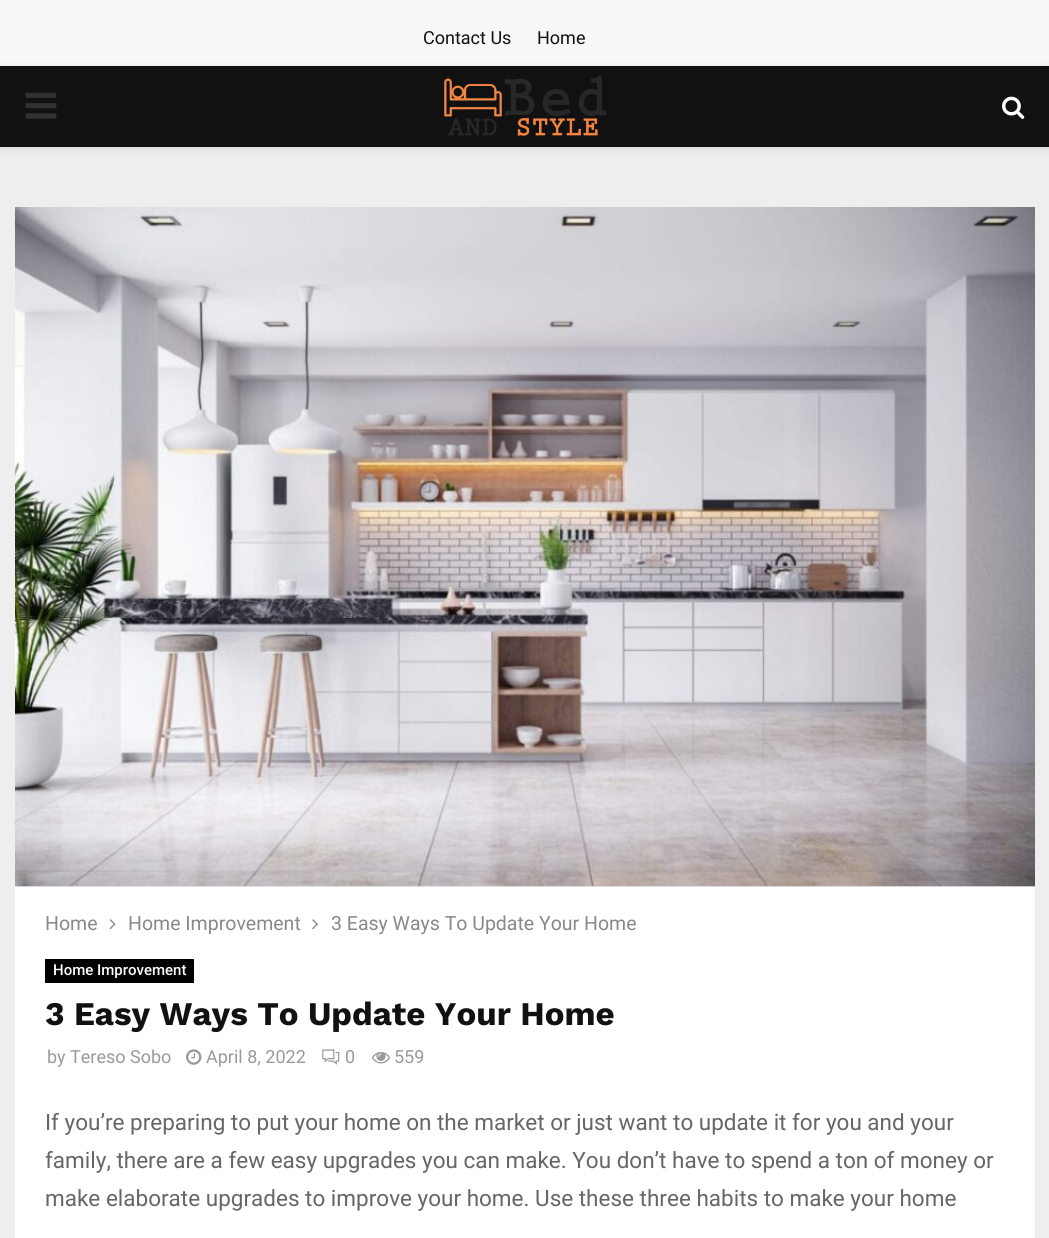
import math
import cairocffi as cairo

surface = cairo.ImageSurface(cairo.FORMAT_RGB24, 1049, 1238)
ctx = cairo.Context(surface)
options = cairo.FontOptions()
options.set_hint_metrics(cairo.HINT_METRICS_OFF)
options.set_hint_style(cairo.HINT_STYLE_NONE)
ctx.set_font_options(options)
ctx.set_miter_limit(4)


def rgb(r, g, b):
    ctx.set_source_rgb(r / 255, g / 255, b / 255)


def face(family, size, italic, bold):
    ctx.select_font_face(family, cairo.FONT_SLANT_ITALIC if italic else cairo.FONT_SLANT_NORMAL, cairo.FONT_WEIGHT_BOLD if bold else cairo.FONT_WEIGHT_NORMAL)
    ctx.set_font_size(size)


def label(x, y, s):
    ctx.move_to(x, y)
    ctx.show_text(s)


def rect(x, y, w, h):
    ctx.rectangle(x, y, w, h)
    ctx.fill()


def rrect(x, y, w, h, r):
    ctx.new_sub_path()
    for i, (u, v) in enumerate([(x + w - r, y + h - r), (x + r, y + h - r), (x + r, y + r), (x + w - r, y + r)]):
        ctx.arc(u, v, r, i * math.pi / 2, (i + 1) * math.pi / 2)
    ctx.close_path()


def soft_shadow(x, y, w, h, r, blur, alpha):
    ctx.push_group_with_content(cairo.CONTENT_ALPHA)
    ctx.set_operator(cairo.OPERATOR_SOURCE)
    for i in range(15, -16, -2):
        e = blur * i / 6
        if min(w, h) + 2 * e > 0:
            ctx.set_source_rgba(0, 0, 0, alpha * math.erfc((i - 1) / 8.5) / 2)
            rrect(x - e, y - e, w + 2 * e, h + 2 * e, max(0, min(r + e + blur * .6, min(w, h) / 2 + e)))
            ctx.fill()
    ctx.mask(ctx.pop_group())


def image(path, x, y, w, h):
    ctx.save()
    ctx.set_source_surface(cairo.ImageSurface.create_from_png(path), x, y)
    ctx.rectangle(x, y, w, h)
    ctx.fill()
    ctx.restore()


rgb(238, 238, 238)
ctx.paint()
rgb(247, 247, 247)
rect(0, 0, 1049, 66)
face('Roboto', 18, 0, 0)
rgb(17, 17, 17)
label(423, 44, 'Contact Us')
label(537, 44, 'Home')
rgb(190, 190, 190)
soft_shadow(0, 68, 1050, 81, 0, 4, 0.46)
rgb(17, 17, 17)
rect(0, 66, 1049, 81)
image('image0.png', 25, 92, 32, 27)
image('image1.png', 444, 75, 163, 61)
image('image2.png', 1002, 96, 23, 23)
image('image3.png', 15, 207, 1020, 680)
rgb(255, 255, 255)
rect(15, 887, 1020, 351)
face('Roboto', 19.5, 0, 0)
rgb(136, 136, 136)
label(45, 930, 'Home')
image('image4.png', 109, 919, 7, 11)
label(128, 930, 'Home Improvement')
image('image5.png', 312, 919, 6, 11)
label(331, 930, '3 Easy Ways To Update Your Home')
rgb(0, 0, 0)
rect(45, 959, 149, 24)
face('Roboto Medium', 15, 0, 0)
rgb(255, 255, 255)
label(53, 975, 'Home Improvement')
face('Work Sans', 33, 0, 1)
rgb(17, 17, 17)
label(45, 1025, '3 Easy Ways To Update Your Home')
face('Roboto', 18, 0, 0)
rgb(153, 153, 153)
label(47, 1063, 'by Tereso Sobo')
image('image6.png', 186, 1049, 16, 16)
label(206, 1063, 'April 8, 2022')
image('image7.png', 322, 1049, 18, 16)
label(345, 1063, '0')
image('image8.png', 372, 1052, 18, 12)
label(394, 1063, '559')
face('Roboto', 22.5, 0, 0)
rgb(102, 102, 102)
label(45, 1130, 'If you’re preparing to put your home on the market or just want to update it for you and your')
label(45, 1168, 'family, there are a few easy upgrades you can make. You don’t have to spend a ton of money or')
label(45, 1206, 'make elaborate upgrades to improve your home. Use these three habits to make your home')
surface.write_to_png('render.png')
